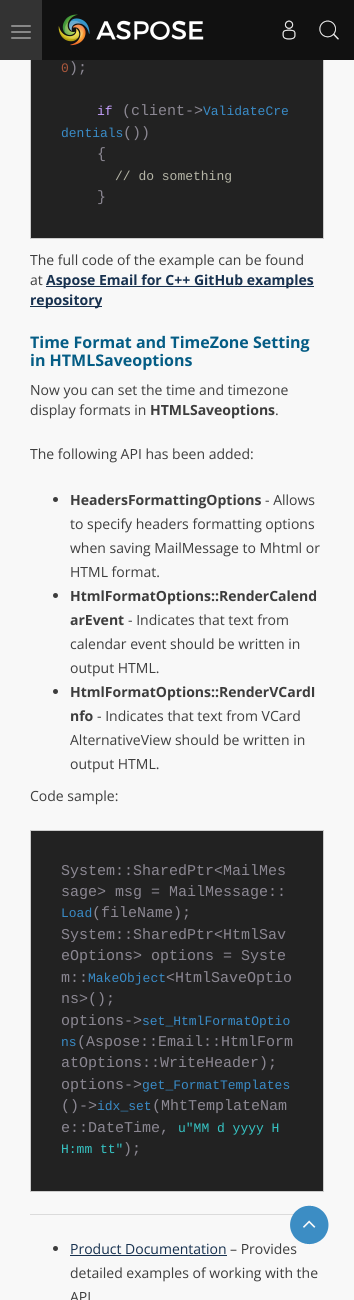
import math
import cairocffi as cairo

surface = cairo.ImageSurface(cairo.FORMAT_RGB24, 354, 1300)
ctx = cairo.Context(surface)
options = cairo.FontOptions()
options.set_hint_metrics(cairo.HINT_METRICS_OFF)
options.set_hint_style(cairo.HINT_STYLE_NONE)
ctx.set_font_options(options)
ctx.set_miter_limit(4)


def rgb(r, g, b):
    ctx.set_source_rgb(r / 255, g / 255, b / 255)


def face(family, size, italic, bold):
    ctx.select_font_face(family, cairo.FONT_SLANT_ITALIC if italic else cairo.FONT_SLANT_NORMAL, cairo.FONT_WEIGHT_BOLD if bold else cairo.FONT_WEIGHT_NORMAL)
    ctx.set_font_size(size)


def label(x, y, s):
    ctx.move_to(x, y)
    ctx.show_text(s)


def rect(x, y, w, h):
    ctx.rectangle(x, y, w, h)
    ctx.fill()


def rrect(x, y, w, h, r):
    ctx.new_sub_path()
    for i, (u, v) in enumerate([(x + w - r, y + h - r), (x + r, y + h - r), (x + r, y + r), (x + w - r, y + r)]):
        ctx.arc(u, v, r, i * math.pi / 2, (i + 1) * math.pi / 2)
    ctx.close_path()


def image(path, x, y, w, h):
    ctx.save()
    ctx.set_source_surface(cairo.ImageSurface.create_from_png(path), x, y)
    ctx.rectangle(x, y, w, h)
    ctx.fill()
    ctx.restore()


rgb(248, 248, 248)
ctx.paint()
rgb(34, 34, 34)
rect(31, 60, 292, 178)
ctx.rectangle(30.5, -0.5, 293, 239)
rgb(204, 204, 204)
ctx.set_line_width(1)
ctx.stroke()
rgb(17, 17, 17)
rect(42, 0, 312, 60)
rgb(51, 51, 51)
rect(0, 0, 42, 60)
rgb(136, 136, 136)
rrect(11, 25, 20, 2, 1)
ctx.fill()
rrect(11, 31, 20, 2, 1)
ctx.fill()
rrect(11, 37, 20, 2, 1)
ctx.fill()
image('image0.png', 58, 14, 146, 32)
image('image1.png', 282, 20, 14, 20)
image('image2.png', 319, 20, 20, 20)
face('Liberation Mono', 13, 0, 0)
rgb(170, 87, 60)
label(61, 72, '0')
face('Liberation Mono', 15, 0, 0)
rgb(139, 135, 146)
label(69, 72, ');')
face('Liberation Mono', 13, 0, 0)
rgb(197, 160, 253)
label(97, 115, 'if')
face('Liberation Mono', 15, 0, 0)
rgb(139, 135, 146)
label(122, 115, '(client->')
face('Liberation Mono', 13, 0, 0)
rgb(57, 139, 198)
label(203, 115, 'ValidateCre')
label(61, 137, 'dentials')
face('Liberation Mono', 15, 0, 0)
rgb(139, 135, 146)
label(123, 137, '())')
label(97, 158, '{')
face('Liberation Mono', 13, 0, 0)
rgb(181, 181, 166)
label(115, 180, '// do something')
face('Liberation Mono', 15, 0, 0)
rgb(139, 135, 146)
label(97, 201, '}')
face('Open Sans', 14, 0, 0)
rgb(61, 61, 61)
label(30, 265, 'The full code of the example can be found')
label(30, 285, 'at')
rgb(23, 49, 79)
rect(46, 286, 268, 1)
face('Open Sans', 14, 0, 1)
label(46, 285, 'Aspose Email for C++ GitHub examples')
rect(30, 306, 72, 1)
label(30, 305, 'repository')
face('Open Sans', 16, 0, 1)
rgb(5, 93, 133)
label(30, 348, 'Time Format and TimeZone Setting')
label(30, 366, 'in HTMLSaveoptions')
face('Open Sans', 14, 0, 0)
rgb(61, 61, 61)
label(30, 395, 'Now you can set the time and timezone')
label(30, 415, 'display formats in')
face('Open Sans', 14, 0, 1)
label(150, 415, 'HTMLSaveoptions')
face('Open Sans', 14, 0, 0)
label(275, 415, '.')
label(30, 459, 'The following API has been added:')
ctx.new_path()
ctx.arc(55.5, 499.5, 2.5, 0, 2 * math.pi)
ctx.fill()
face('Open Sans', 14, 0, 1)
label(70, 505, 'HeadersFormattingOptions')
face('Open Sans', 14, 0, 0)
label(265, 505, '- Allows')
label(70, 529, 'to specify headers formatting options')
label(70, 553, 'when saving MailMessage to Mhtml or')
label(70, 577, 'HTML format.')
ctx.new_path()
ctx.arc(55.5, 595.5, 2.5, 0, 2 * math.pi)
ctx.fill()
face('Open Sans', 14, 0, 1)
label(70, 601, 'HtmlFormatOptions::RenderCalend')
label(70, 625, 'arEvent')
face('Open Sans', 14, 0, 0)
label(128, 625, '- Indicates that text from')
label(70, 649, 'calendar event should be written in')
label(70, 673, 'output HTML.')
ctx.new_path()
ctx.arc(55.5, 691.5, 2.5, 0, 2 * math.pi)
ctx.fill()
face('Open Sans', 14, 0, 1)
label(70, 697, 'HtmlFormatOptions::RenderVCardI')
label(70, 721, 'nfo')
face('Open Sans', 14, 0, 0)
label(97, 721, '- Indicates that text from VCard')
label(70, 745, 'AlternativeView should be written in')
label(70, 769, 'output HTML.')
label(30, 801, 'Code sample:')
rgb(34, 34, 34)
ctx.rectangle(30.5, 830.5, 293, 361)
ctx.fill_preserve()
rgb(204, 204, 204)
ctx.stroke()
face('Liberation Mono', 15, 0, 0)
rgb(139, 135, 146)
label(61, 875, 'System::SharedPtr<MailMes')
label(61, 896, 'sage> msg = MailMessage::')
face('Liberation Mono', 13, 0, 0)
rgb(57, 139, 198)
label(61, 917, 'Load')
face('Liberation Mono', 15, 0, 0)
rgb(139, 135, 146)
label(92, 917, '(fileName);')
label(61, 939, 'System::SharedPtr<HtmlSav')
label(61, 960, 'eOptions> options = Syste')
label(61, 982, 'm::')
face('Liberation Mono', 13, 0, 0)
rgb(57, 139, 198)
label(88, 982, 'MakeObject')
face('Liberation Mono', 15, 0, 0)
rgb(139, 135, 146)
label(166, 982, '<HtmlSaveOptio')
label(61, 1003, 'ns>();')
label(61, 1025, 'options->')
face('Liberation Mono', 13, 0, 0)
rgb(57, 139, 198)
label(142, 1025, 'set_HtmlFormatOptio')
label(61, 1046, 'ns')
face('Liberation Mono', 15, 0, 0)
rgb(139, 135, 146)
label(77, 1046, '(Aspose::Email::HtmlForm')
label(61, 1067, 'atOptions::WriteHeader);')
label(61, 1089, 'options->')
face('Liberation Mono', 13, 0, 0)
rgb(57, 139, 198)
label(142, 1089, 'get_FormatTemplates')
face('Liberation Mono', 15, 0, 0)
rgb(139, 135, 146)
label(61, 1110, '()->')
face('Liberation Mono', 13, 0, 0)
rgb(57, 139, 198)
label(97, 1110, 'idx_set')
face('Liberation Mono', 15, 0, 0)
rgb(139, 135, 146)
label(152, 1110, '(MhtTemplateNam')
label(61, 1132, 'e::DateTime,')
face('Liberation Mono', 13, 0, 0)
rgb(54, 196, 196)
label(178, 1132, 'u"MM d yyyy H')
label(61, 1153, 'H:mm tt"')
face('Liberation Mono', 15, 0, 0)
rgb(139, 135, 146)
label(123, 1153, ');')
rgb(219, 219, 219)
rect(30, 1214, 264, 1)
rgb(61, 61, 61)
ctx.new_path()
ctx.arc(55.5, 1248.5, 2.5, 0, 2 * math.pi)
ctx.fill()
face('Open Sans', 14, 0, 0)
rgb(23, 49, 79)
label(70, 1254, 'Product Documentation')
rect(70, 1255, 157, 1)
rgb(61, 61, 61)
label(230, 1254, '– Provides')
label(70, 1278, 'detailed examples of working with the')
label(70, 1302, 'API')
image('image3.png', 290, 1205, 39, 40)
surface.write_to_png('render.png')
